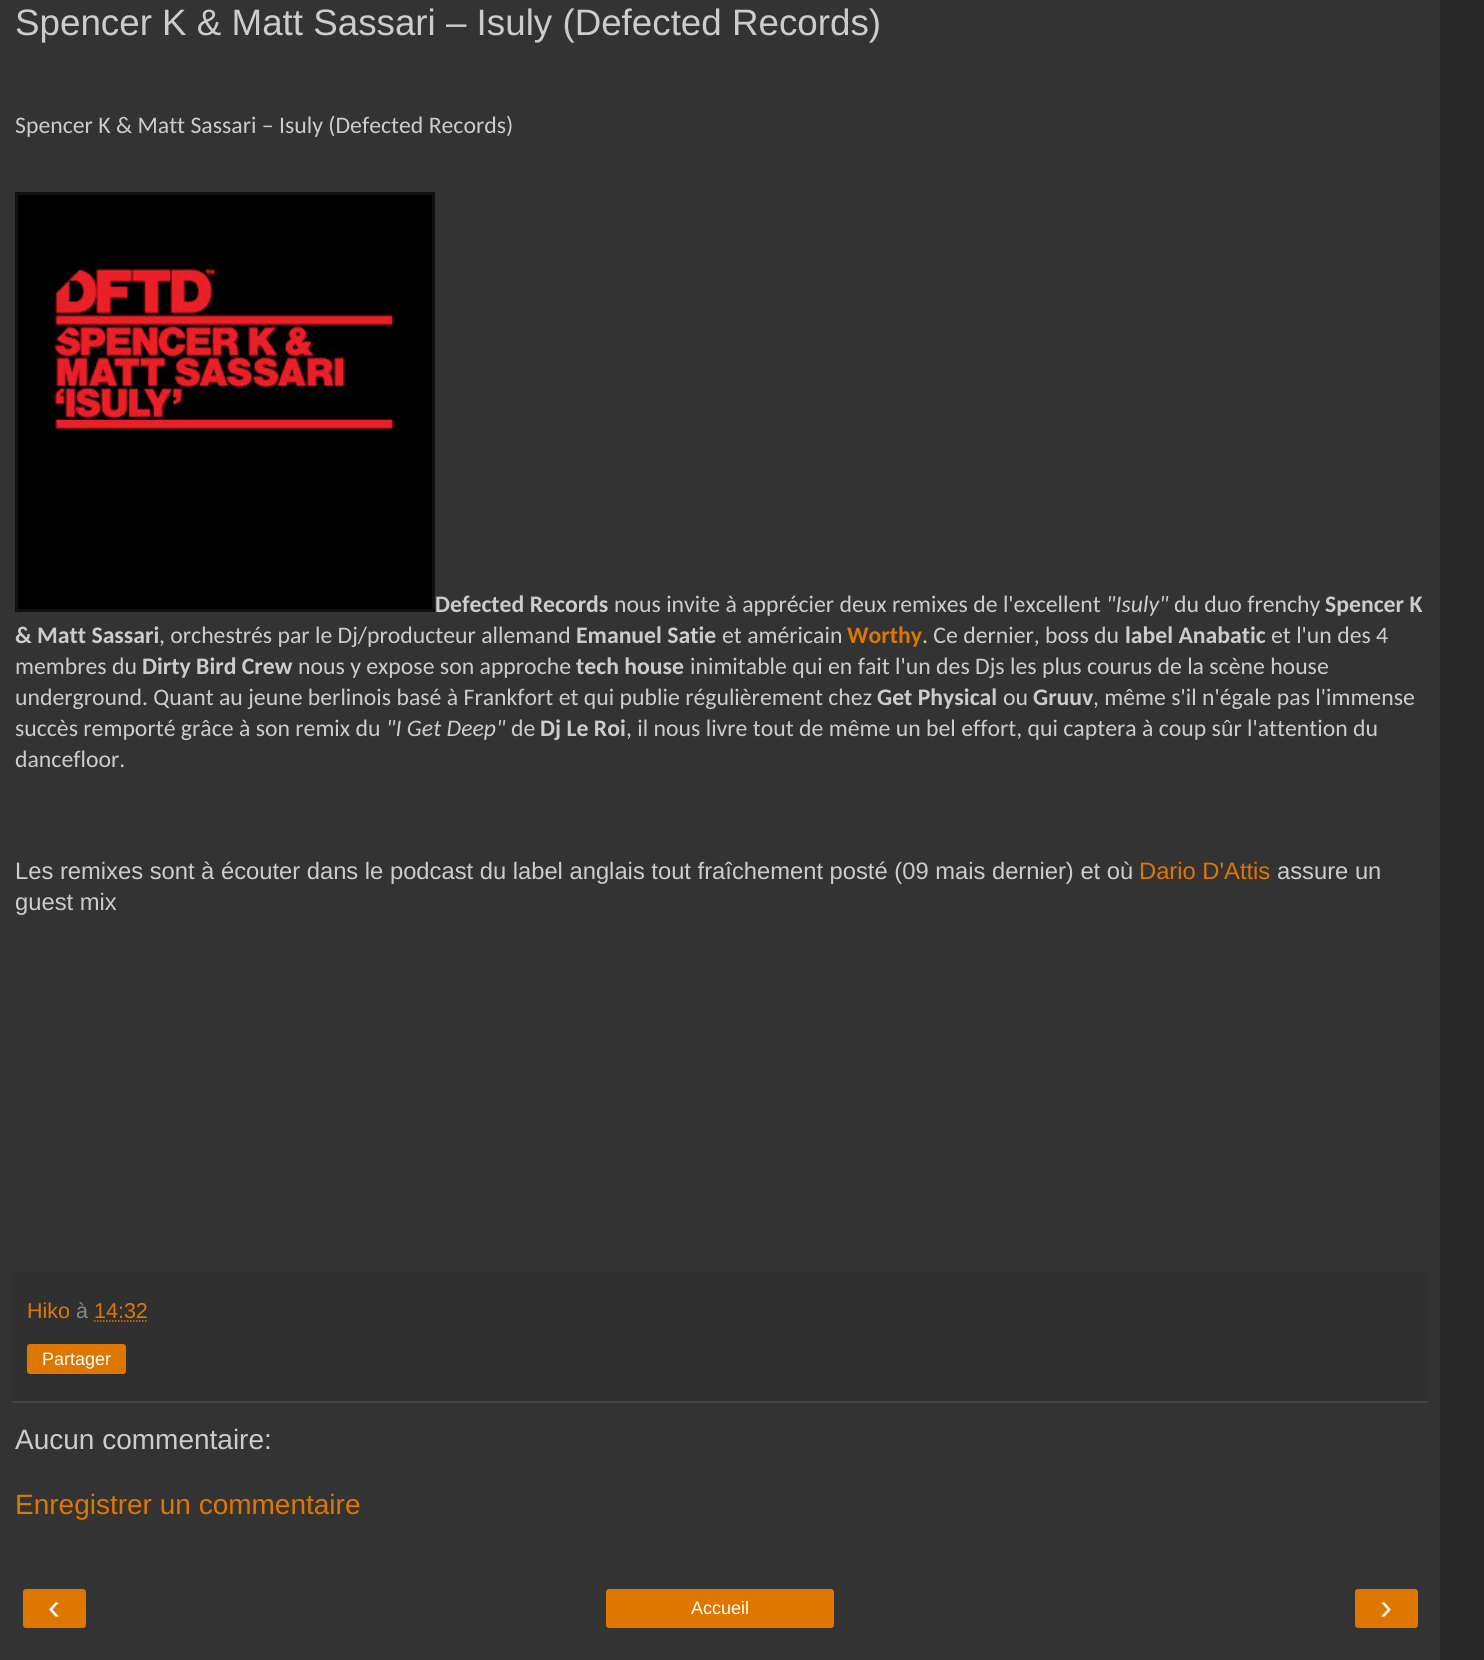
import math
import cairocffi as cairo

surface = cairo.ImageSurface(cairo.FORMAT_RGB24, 1484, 1660)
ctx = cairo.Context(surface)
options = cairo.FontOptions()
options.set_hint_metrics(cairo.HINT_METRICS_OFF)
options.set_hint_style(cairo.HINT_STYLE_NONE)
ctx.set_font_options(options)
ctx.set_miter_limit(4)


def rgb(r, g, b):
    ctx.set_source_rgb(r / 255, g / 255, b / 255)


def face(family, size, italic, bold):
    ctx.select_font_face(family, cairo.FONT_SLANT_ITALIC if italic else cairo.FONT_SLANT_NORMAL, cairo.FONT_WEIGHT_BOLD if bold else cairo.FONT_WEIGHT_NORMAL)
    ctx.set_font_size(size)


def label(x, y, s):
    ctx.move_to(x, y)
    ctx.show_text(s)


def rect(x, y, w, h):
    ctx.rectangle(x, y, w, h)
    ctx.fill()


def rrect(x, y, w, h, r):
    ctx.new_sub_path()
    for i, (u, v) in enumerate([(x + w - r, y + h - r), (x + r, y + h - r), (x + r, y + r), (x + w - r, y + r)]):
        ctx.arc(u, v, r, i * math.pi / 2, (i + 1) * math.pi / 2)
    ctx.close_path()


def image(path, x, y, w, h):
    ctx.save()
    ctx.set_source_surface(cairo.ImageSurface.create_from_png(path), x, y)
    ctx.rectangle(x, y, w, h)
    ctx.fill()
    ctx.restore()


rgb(41, 41, 41)
ctx.paint()
rgb(51, 51, 51)
rect(0, 0, 1440, 1660)
face('Liberation Sans', 36.75, 0, 0)
rgb(204, 204, 204)
label(15, 35, 'Spencer K & Matt Sassari – Isuly (Defected Records)')
face('Carlito', 23.75, 0, 0)
label(15, 133, 'Spencer K & Matt Sassari – Isuly (Defected Records)')
rgb(17, 17, 17)
rect(15, 192, 420, 420)
image('image0.png', 18, 195, 414, 414)
face('Carlito', 23.75, 0, 1)
rgb(204, 204, 204)
label(435, 612, 'Defected Records')
face('Carlito', 23.75, 0, 0)
label(614, 612, 'nous invite à apprécier deux remixes de l\'excellent')
face('Carlito', 23.75, 1, 0)
label(1106, 612, '"Isuly"')
face('Carlito', 23.75, 0, 0)
label(1174, 612, 'du duo frenchy')
face('Carlito', 23.75, 0, 1)
label(1325, 612, 'Spencer K')
label(15, 643, '& Matt Sassari')
face('Carlito', 23.75, 0, 0)
label(159, 643, ', orchestrés par le Dj/producteur allemand')
face('Carlito', 23.75, 0, 1)
label(576, 643, 'Emanuel Satie')
face('Carlito', 23.75, 0, 0)
label(722, 643, 'et américain')
face('Carlito', 23.75, 0, 1)
rgb(221, 119, 0)
label(847, 643, 'Worthy')
face('Carlito', 23.75, 0, 0)
rgb(204, 204, 204)
label(922, 643, '. Ce dernier, boss du')
face('Carlito', 23.75, 0, 1)
label(1125, 643, 'label Anabatic')
face('Carlito', 23.75, 0, 0)
label(1271, 643, 'et l\'un des 4')
label(15, 674, 'membres du')
face('Carlito', 23.75, 0, 1)
label(142, 674, 'Dirty Bird Crew')
face('Carlito', 23.75, 0, 0)
label(298, 674, 'nous y expose son approche')
face('Carlito', 23.75, 0, 1)
label(576, 674, 'tech house')
face('Carlito', 23.75, 0, 0)
label(690, 674, 'inimitable qui en fait l\'un des Djs les plus courus de la scène house')
label(15, 705, 'underground. Quant au jeune berlinois basé à Frankfort et qui publie régulièrement chez')
face('Carlito', 23.75, 0, 1)
label(877, 705, 'Get Physical')
face('Carlito', 23.75, 0, 0)
label(1003, 705, 'ou')
face('Carlito', 23.75, 0, 1)
label(1033, 705, 'Gruuv')
face('Carlito', 23.75, 0, 0)
label(1093, 705, ', même s\'il n\'égale pas l\'immense')
label(15, 736, 'succès remporté grâce à son remix du')
face('Carlito', 23.75, 1, 0)
label(386, 736, '"I Get Deep"')
face('Carlito', 23.75, 0, 0)
label(511, 736, 'de')
face('Carlito', 23.75, 0, 1)
label(540, 736, 'Dj Le Roi')
face('Carlito', 23.75, 0, 0)
label(626, 736, ', il nous livre tout de même un bel effort, qui captera à coup sûr l\'attention du')
label(15, 767, 'dancefloor.')
face('Liberation Sans', 23.75, 0, 0)
label(15, 879, 'Les remixes sont à écouter dans le podcast du label anglais tout fraîchement posté (09 mais dernier) et où')
rgb(221, 119, 0)
label(1139, 879, 'Dario D\'Attis')
rgb(204, 204, 204)
label(1277, 879, 'assure un')
label(15, 910, 'guest mix')
rgb(48, 48, 48)
rect(12, 1272, 1416, 129)
rgb(68, 68, 68)
rect(12, 1401, 1416, 2)
face('Liberation Sans', 21.5, 0, 0)
rgb(221, 119, 0)
label(27, 1318, 'Hiko')
rgb(136, 136, 136)
label(76, 1318, 'à')
rgb(221, 119, 0)
label(94, 1318, '14:32')
ctx.new_path()
ctx.move_to(94, 1321)
ctx.line_to(148, 1321)
ctx.set_line_width(1.5)
ctx.set_dash([1.5, 1.5])
ctx.stroke()
rrect(27, 1344, 99, 30, 3)
ctx.fill()
face('Liberation Sans', 18, 0, 0)
rgb(255, 255, 255)
label(42, 1365, 'Partager')
face('Liberation Sans', 28, 0, 0)
rgb(204, 204, 204)
label(15, 1449, 'Aucun commentaire:')
rgb(221, 119, 0)
label(15, 1514, 'Enregistrer un commentaire')
rrect(23, 1589, 63, 39, 3)
ctx.fill()
face('Liberation Sans', 36, 0, 0)
rgb(255, 255, 255)
label(48, 1619, '‹')
rgb(221, 119, 0)
rrect(606, 1589, 228, 39, 3)
ctx.fill()
face('Liberation Sans', 18, 0, 0)
rgb(255, 255, 255)
label(691, 1614, 'Accueil')
rgb(221, 119, 0)
rrect(1355, 1589, 63, 39, 3)
ctx.fill()
face('Liberation Sans', 36, 0, 0)
rgb(255, 255, 255)
label(1380, 1619, '›')
surface.write_to_png('render.png')
